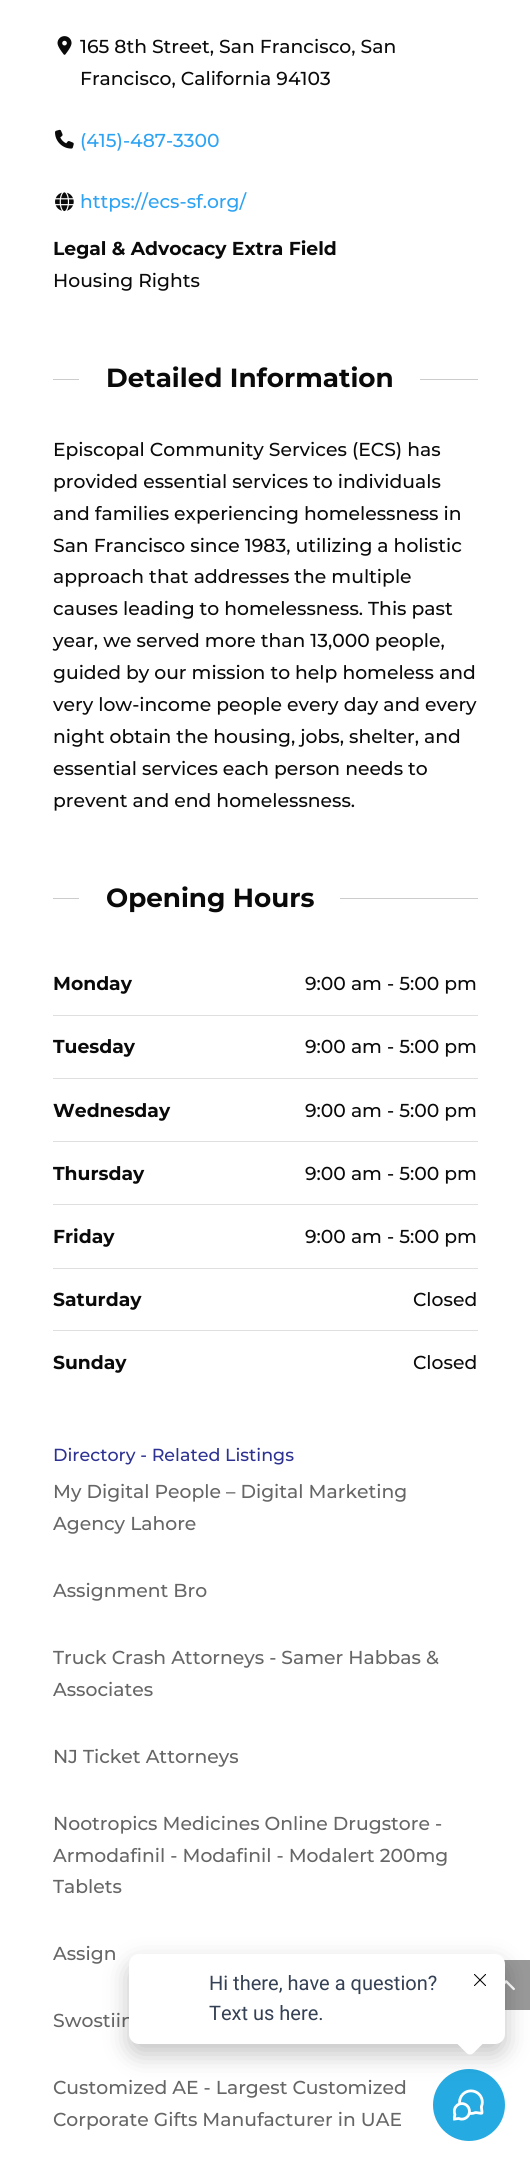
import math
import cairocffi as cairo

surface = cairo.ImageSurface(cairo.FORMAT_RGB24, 530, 2166)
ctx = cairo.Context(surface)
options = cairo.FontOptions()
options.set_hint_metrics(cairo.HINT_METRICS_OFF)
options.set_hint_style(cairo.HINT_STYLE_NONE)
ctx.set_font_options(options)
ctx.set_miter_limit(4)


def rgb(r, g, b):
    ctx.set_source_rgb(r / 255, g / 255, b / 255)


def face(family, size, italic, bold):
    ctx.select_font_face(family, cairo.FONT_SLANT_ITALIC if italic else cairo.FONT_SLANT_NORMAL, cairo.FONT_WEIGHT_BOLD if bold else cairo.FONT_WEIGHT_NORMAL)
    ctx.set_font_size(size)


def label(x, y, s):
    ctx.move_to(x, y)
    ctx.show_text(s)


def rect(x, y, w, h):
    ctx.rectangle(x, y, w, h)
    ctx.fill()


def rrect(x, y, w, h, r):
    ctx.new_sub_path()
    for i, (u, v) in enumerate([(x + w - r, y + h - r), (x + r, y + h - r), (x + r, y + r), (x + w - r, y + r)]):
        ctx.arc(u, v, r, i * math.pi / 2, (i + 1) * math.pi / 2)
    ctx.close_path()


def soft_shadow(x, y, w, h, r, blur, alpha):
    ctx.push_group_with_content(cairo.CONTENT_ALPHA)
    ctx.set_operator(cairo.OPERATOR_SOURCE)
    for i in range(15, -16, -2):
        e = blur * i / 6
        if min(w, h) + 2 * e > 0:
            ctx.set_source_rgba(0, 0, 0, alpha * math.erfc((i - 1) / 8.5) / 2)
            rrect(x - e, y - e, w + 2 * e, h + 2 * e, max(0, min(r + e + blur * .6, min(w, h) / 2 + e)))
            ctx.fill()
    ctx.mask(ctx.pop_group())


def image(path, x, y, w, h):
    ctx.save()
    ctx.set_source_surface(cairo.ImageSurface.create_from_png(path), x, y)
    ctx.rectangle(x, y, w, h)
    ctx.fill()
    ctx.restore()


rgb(255, 255, 255)
ctx.paint()
image('image0.png', 57, 36, 15, 19)
face('Montserrat Medium', 18.75, 0, 0)
rgb(10, 10, 10)
label(80, 53, '165 8th Street, San Francisco, San')
label(80, 85, 'Francisco, California 94103')
image('image1.png', 55, 129, 19, 20)
rgb(46, 163, 242)
label(80, 147, '(415)-487-3300')
image('image2.png', 55, 192, 19, 20)
label(80, 208, 'https://ecs-sf.org/')
face('Montserrat', 18.75, 0, 1)
rgb(10, 10, 10)
label(53, 255, 'Legal & Advocacy Extra Field')
face('Montserrat Medium', 18.75, 0, 0)
label(53, 287, 'Housing Rights')
rgb(204, 204, 204)
rect(53, 379, 425, 1)
rgb(255, 255, 255)
rect(79, 379, 341, 1)
face('Montserrat', 26.25, 0, 1)
rgb(10, 10, 10)
label(106, 387, 'Detailed Information')
face('Montserrat Medium', 18.75, 0, 0)
label(53, 456, 'Episcopal Community Services (ECS) has')
label(53, 488, 'provided essential services to individuals')
label(53, 520, 'and families experiencing homelessness in')
label(53, 552, 'San Francisco since 1983, utilizing a holistic')
label(53, 583, 'approach that addresses the multiple')
label(53, 615, 'causes leading to homelessness. This past')
label(53, 647, 'year, we served more than 13,000 people,')
label(53, 679, 'guided by our mission to help homeless and')
label(53, 711, 'very low-income people every day and every')
label(53, 743, 'night obtain the housing, jobs, shelter, and')
label(53, 775, 'essential services each person needs to')
label(53, 807, 'prevent and end homelessness.')
rgb(204, 204, 204)
rect(53, 898, 425, 1)
rgb(255, 255, 255)
rect(79, 898, 261, 1)
face('Montserrat', 26.25, 0, 1)
rgb(10, 10, 10)
label(106, 907, 'Opening Hours')
rgb(223, 223, 223)
rect(53, 1015, 425, 1)
face('Montserrat', 18.75, 0, 1)
rgb(10, 10, 10)
label(53, 990, 'Monday')
face('Montserrat Medium', 18.75, 0, 0)
label(305, 990, '9:00 am - 5:00 pm')
rgb(223, 223, 223)
rect(53, 1078, 425, 1)
face('Montserrat', 18.75, 0, 1)
rgb(10, 10, 10)
label(53, 1053, 'Tuesday')
face('Montserrat Medium', 18.75, 0, 0)
label(305, 1053, '9:00 am - 5:00 pm')
rgb(223, 223, 223)
rect(53, 1141, 425, 1)
face('Montserrat', 18.75, 0, 1)
rgb(10, 10, 10)
label(53, 1117, 'Wednesday')
face('Montserrat Medium', 18.75, 0, 0)
label(305, 1117, '9:00 am - 5:00 pm')
rgb(223, 223, 223)
rect(53, 1204, 425, 1)
face('Montserrat', 18.75, 0, 1)
rgb(10, 10, 10)
label(53, 1180, 'Thursday')
face('Montserrat Medium', 18.75, 0, 0)
label(305, 1180, '9:00 am - 5:00 pm')
rgb(223, 223, 223)
rect(53, 1268, 425, 1)
face('Montserrat', 18.75, 0, 1)
rgb(10, 10, 10)
label(53, 1243, 'Friday')
face('Montserrat Medium', 18.75, 0, 0)
label(305, 1243, '9:00 am - 5:00 pm')
rgb(223, 223, 223)
rect(53, 1330, 425, 1)
face('Montserrat', 18.75, 0, 1)
rgb(10, 10, 10)
label(53, 1306, 'Saturday')
face('Montserrat Medium', 18.75, 0, 0)
label(413, 1306, 'Closed')
face('Montserrat', 18.75, 0, 1)
label(53, 1369, 'Sunday')
face('Montserrat Medium', 18.75, 0, 0)
label(413, 1369, 'Closed')
face('Montserrat Medium', 17.5, 0, 0)
rgb(45, 49, 146)
label(53, 1461, 'Directory - Related Listings')
face('Montserrat Medium', 18.75, 0, 0)
rgb(102, 102, 102)
label(53, 1498, 'My Digital People – Digital Marketing')
label(53, 1530, 'Agency Lahore')
label(53, 1597, 'Assignment Bro')
label(53, 1664, 'Truck Crash Attorneys - Samer Habbas &')
label(53, 1696, 'Associates')
label(53, 1763, 'NJ Ticket Attorneys')
label(53, 1830, 'Nootropics Medicines Online Drugstore -')
label(53, 1862, 'Armodafinil - Modafinil - Modalert 200mg')
label(53, 1893, 'Tablets')
label(53, 1960, 'Assign')
label(53, 2027, 'Swostiin')
label(53, 2094, 'Customized AE - Largest Customized')
label(53, 2126, 'Corporate Gifts Manufacturer in UAE')
rgb(153, 153, 153)
rect(504, 1960, 26, 50)
image('image3.png', 505, 1980, 10, 11)
rgb(37, 170, 225)
ctx.arc(469, 2105, 36, 0, 2 * math.pi)
ctx.fill()
image('image5.png', 453, 2089, 31, 32)
rgb(0, 0, 0)
soft_shadow(129, 1964, 376, 90, 10, 12.5, 0.24)
rgb(255, 255, 255)
rrect(129, 1954, 376, 90, 10)
ctx.fill()
face('Roboto', 20, 0, 0)
rgb(52, 64, 84)
label(209, 1990, 'Hi there, have a question?')
label(209, 2020, 'Text us here.')
rgb(255, 255, 255)
ctx.new_path()
ctx.move_to(473.5, 2024.5)
ctx.line_to(484, 2035)
ctx.curve_to(486, 2037, 486, 2040.5, 484, 2042.5)
ctx.line_to(473.5, 2053)
ctx.curve_to(471.5, 2055, 468.5, 2055, 466.5, 2053)
ctx.line_to(456, 2042.5)
ctx.curve_to(454, 2040.5, 454, 2037, 456, 2035)
ctx.line_to(466.5, 2024.5)
ctx.curve_to(468.5, 2022.5, 471.5, 2022.5, 473.5, 2024.5)
ctx.close_path()
ctx.fill()
image('image4.png', 474, 1974, 12, 12)
surface.write_to_png('render.png')
